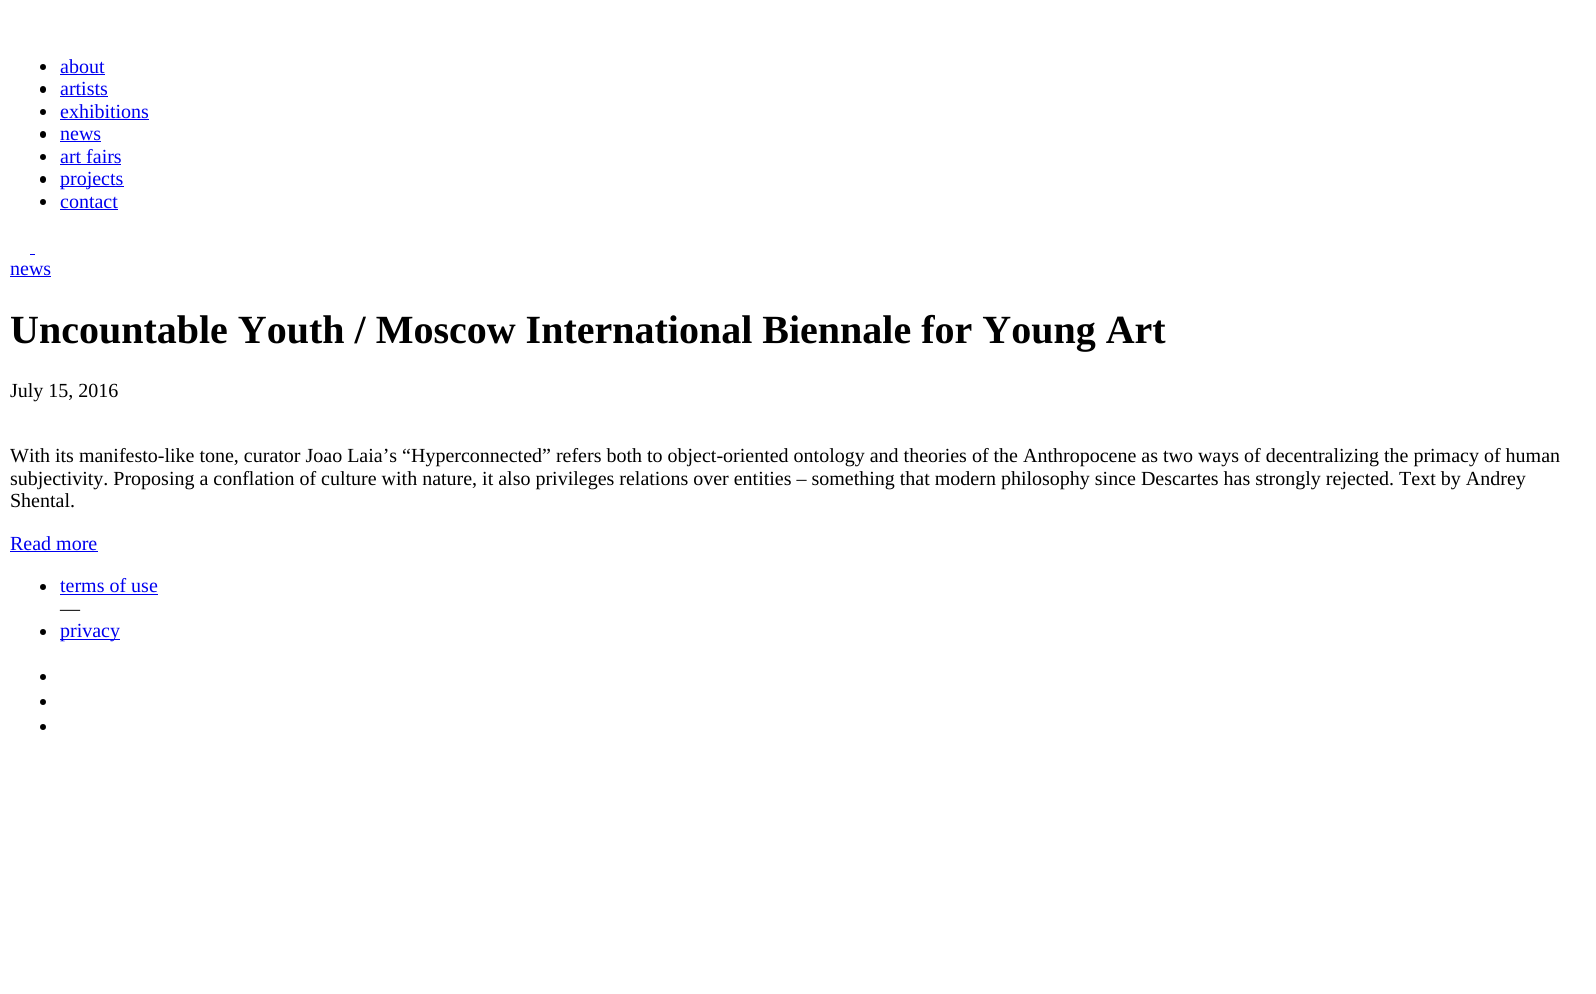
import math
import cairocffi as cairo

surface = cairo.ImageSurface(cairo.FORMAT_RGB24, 1596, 994)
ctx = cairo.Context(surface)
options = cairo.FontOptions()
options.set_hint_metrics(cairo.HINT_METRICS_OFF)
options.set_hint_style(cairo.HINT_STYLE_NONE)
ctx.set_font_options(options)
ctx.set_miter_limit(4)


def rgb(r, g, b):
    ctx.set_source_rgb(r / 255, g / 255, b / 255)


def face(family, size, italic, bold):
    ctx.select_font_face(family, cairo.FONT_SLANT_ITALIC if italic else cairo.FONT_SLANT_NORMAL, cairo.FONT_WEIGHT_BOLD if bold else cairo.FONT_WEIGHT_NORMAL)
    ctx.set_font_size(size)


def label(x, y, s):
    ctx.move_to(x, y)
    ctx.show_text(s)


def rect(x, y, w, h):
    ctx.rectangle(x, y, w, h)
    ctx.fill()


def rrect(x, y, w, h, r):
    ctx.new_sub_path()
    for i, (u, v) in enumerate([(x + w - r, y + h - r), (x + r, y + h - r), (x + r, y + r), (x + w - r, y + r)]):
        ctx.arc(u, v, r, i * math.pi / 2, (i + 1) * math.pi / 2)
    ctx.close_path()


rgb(255, 255, 255)
ctx.paint()
rgb(0, 0, 0)
ctx.arc(43, 67, 3, 0, 2 * math.pi)
ctx.fill()
face('Liberation Serif', 20, 0, 0)
rgb(0, 0, 238)
label(60, 73, 'about')
rect(60, 74, 45, 1)
rgb(0, 0, 0)
rrect(40, 86, 6, 7, 3)
ctx.fill()
rgb(0, 0, 238)
label(60, 95, 'artists')
rect(60, 96, 48, 1)
rgb(0, 0, 0)
ctx.new_path()
ctx.arc(43, 112, 3, 0, 2 * math.pi)
ctx.fill()
rgb(0, 0, 238)
label(60, 118, 'exhibitions')
rect(60, 119, 89, 1)
rgb(0, 0, 0)
rrect(40, 131, 6, 7, 3)
ctx.fill()
rgb(0, 0, 238)
label(60, 140, 'news')
rect(60, 141, 41, 1)
rgb(0, 0, 0)
ctx.new_path()
ctx.arc(43, 157, 3, 0, 2 * math.pi)
ctx.fill()
rgb(0, 0, 238)
label(60, 163, 'art fairs')
rect(60, 164, 61, 1)
rgb(0, 0, 0)
rrect(40, 176, 6, 7, 3)
ctx.fill()
rgb(0, 0, 238)
rect(60, 186, 64, 1)
label(60, 185, 'projects')
rgb(0, 0, 0)
ctx.new_path()
ctx.arc(43, 202, 3, 0, 2 * math.pi)
ctx.fill()
rgb(0, 0, 238)
label(60, 208, 'contact')
rect(60, 209, 58, 1)
rect(30, 254, 5, 1)
label(10, 275, 'news')
rect(10, 276, 41, 1)
face('Liberation Serif', 40, 0, 1)
rgb(0, 0, 0)
label(10, 343, 'Uncountable Youth / Moscow International Biennale for Young Art')
face('Liberation Serif', 20, 0, 0)
label(10, 397, 'July 15, 2016')
label(10, 462, 'With its manifesto-like tone, curator Joao Laia’s “Hyperconnected” refers both to object-oriented ontology and theories of the Anthropocene as two ways of decentralizing the primacy of human')
label(10, 485, 'subjectivity. Proposing a conflation of culture with nature, it also privileges relations over entities – something that modern philosophy since Descartes has strongly rejected. Text by Andrey')
label(10, 507, 'Shental.')
rgb(0, 0, 238)
label(10, 550, 'Read more')
rect(10, 551, 88, 1)
rgb(0, 0, 0)
ctx.new_path()
ctx.arc(43, 587, 3, 0, 2 * math.pi)
ctx.fill()
rgb(0, 0, 238)
label(60, 592, 'terms of use')
rect(60, 594, 98, 1)
rgb(0, 0, 0)
label(60, 615, '—')
ctx.new_path()
ctx.arc(43, 632, 3, 0, 2 * math.pi)
ctx.fill()
rgb(0, 0, 238)
rect(60, 639, 60, 1)
label(60, 637, 'privacy')
rgb(0, 0, 0)
ctx.new_path()
ctx.arc(43, 677, 3, 0, 2 * math.pi)
ctx.fill()
ctx.arc(43, 702, 3, 0, 2 * math.pi)
ctx.fill()
ctx.arc(43, 727, 3, 0, 2 * math.pi)
ctx.fill()
surface.write_to_png('render.png')
